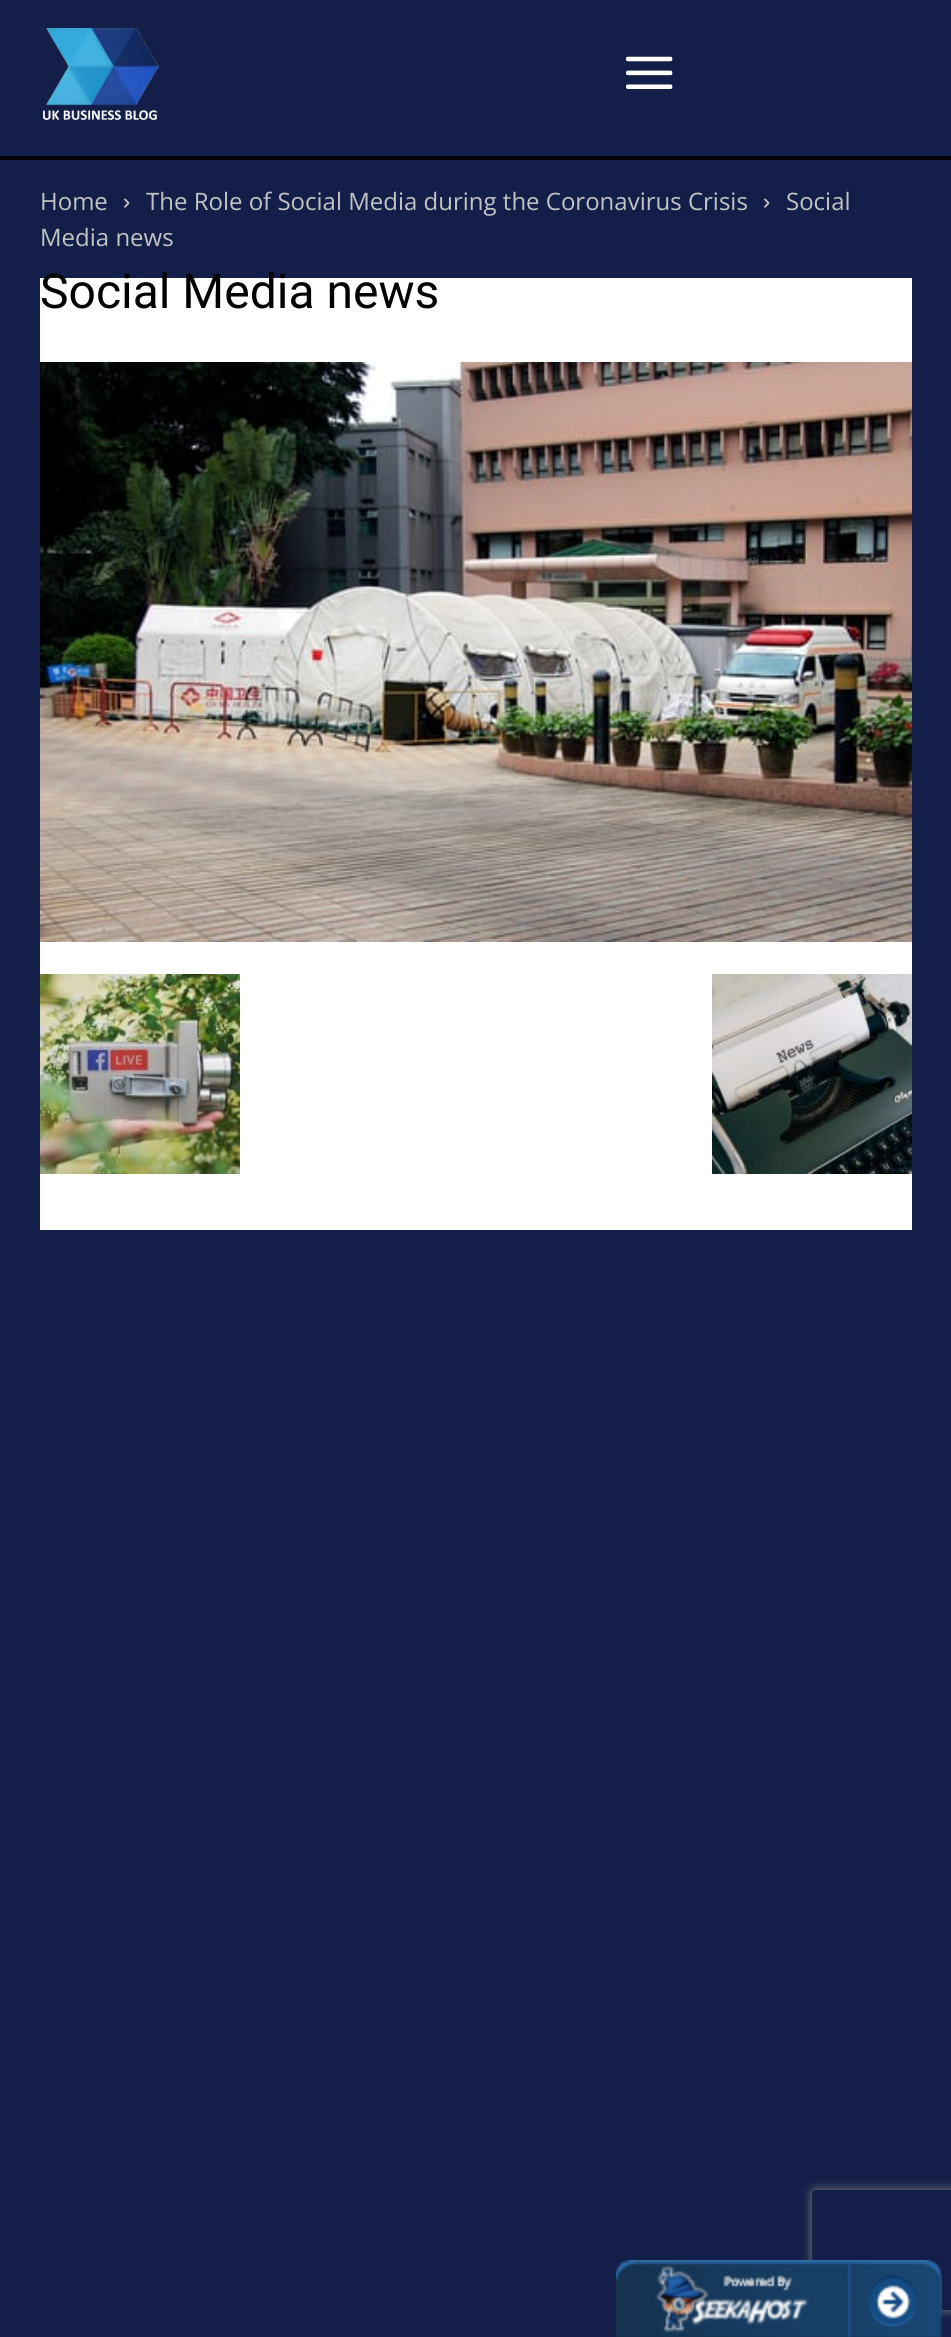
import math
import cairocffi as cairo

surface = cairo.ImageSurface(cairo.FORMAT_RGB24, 951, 2337)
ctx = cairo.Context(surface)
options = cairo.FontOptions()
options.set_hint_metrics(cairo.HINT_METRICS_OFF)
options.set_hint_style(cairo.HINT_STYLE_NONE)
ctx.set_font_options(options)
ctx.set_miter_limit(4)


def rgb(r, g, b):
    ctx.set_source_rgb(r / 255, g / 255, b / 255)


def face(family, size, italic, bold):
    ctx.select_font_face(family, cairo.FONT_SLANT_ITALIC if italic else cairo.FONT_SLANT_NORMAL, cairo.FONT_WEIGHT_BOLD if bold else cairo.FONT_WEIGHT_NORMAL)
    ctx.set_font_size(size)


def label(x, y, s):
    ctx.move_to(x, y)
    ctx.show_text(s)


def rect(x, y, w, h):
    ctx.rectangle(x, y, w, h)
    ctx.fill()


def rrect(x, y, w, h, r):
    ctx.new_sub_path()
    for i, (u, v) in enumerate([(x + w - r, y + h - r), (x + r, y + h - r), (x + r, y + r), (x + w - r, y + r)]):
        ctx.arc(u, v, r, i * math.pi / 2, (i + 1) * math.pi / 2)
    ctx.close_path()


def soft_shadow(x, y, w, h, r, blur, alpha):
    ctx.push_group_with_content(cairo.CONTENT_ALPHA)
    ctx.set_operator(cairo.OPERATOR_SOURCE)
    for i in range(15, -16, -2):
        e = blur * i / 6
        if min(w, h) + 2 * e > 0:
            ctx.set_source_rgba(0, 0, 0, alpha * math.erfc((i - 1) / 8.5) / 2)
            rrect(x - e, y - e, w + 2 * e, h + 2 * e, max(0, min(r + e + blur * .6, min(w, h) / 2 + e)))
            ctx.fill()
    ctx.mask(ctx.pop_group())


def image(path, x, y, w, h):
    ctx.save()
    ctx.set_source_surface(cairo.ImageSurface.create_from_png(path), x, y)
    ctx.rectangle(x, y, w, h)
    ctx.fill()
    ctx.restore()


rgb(19, 31, 73)
ctx.paint()
rgb(0, 0, 0)
rect(0, 156, 951, 4)
image('image0.png', 43, 28, 116, 92)
image('image1.png', 626, 56, 47, 33)
face('Open Sans', 24, 0, 0)
rgb(195, 195, 195)
label(40, 210, 'Home')
image('image2.png', 124, 198, 6, 10)
label(146, 210, 'The Role of Social Media during the Coronavirus Crisis')
image('image2.png', 764, 198, 6, 10)
label(786, 210, 'Social')
label(40, 246, 'Media news')
rgb(255, 255, 255)
rect(40, 278, 872, 952)
face('Roboto', 48, 0, 0)
rgb(0, 0, 0)
label(40, 308, 'Social Media news')
image('image3.png', 40, 362, 872, 580)
image('image4.png', 40, 974, 200, 200)
image('image5.png', 712, 974, 200, 200)
ctx.save()
ctx.set_fill_rule(cairo.FILL_RULE_EVEN_ODD)
ctx.new_path()
ctx.move_to(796, 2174)
ctx.line_to(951, 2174)
ctx.line_to(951, 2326)
ctx.line_to(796, 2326)
ctx.close_path()
ctx.move_to(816, 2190)
ctx.line_to(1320, 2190)
ctx.curve_to(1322, 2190, 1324, 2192, 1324, 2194)
ctx.line_to(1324, 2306)
ctx.curve_to(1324, 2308, 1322, 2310, 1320, 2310)
ctx.line_to(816, 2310)
ctx.curve_to(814, 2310, 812, 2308, 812, 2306)
ctx.line_to(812, 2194)
ctx.curve_to(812, 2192, 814, 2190, 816, 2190)
ctx.close_path()
ctx.clip()
rgb(128, 128, 128)
soft_shadow(812, 2190, 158, 120, 4, 5, 1)
ctx.restore()
image('image6.png', 616, 2260, 326, 77)
surface.write_to_png('render.png')
